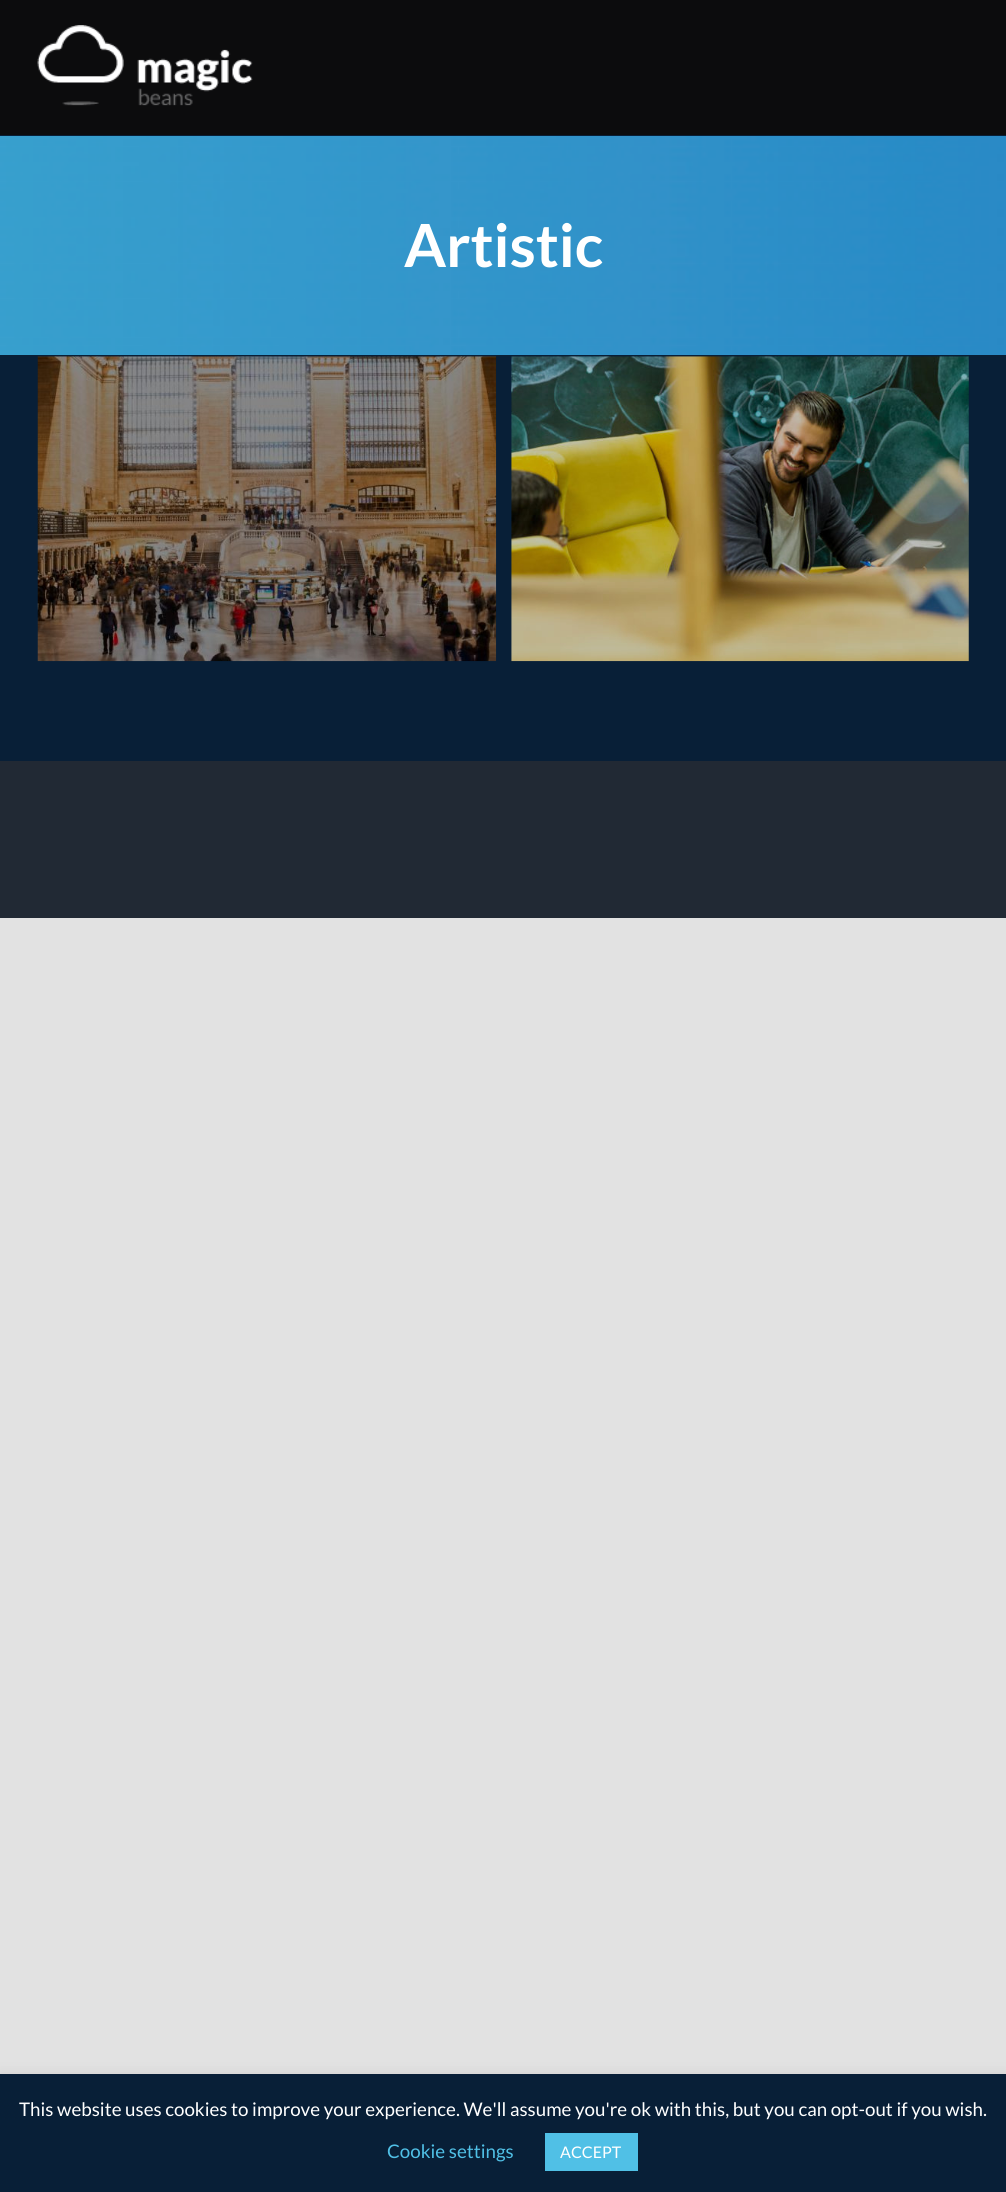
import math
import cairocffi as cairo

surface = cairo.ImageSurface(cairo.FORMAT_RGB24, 1006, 2192)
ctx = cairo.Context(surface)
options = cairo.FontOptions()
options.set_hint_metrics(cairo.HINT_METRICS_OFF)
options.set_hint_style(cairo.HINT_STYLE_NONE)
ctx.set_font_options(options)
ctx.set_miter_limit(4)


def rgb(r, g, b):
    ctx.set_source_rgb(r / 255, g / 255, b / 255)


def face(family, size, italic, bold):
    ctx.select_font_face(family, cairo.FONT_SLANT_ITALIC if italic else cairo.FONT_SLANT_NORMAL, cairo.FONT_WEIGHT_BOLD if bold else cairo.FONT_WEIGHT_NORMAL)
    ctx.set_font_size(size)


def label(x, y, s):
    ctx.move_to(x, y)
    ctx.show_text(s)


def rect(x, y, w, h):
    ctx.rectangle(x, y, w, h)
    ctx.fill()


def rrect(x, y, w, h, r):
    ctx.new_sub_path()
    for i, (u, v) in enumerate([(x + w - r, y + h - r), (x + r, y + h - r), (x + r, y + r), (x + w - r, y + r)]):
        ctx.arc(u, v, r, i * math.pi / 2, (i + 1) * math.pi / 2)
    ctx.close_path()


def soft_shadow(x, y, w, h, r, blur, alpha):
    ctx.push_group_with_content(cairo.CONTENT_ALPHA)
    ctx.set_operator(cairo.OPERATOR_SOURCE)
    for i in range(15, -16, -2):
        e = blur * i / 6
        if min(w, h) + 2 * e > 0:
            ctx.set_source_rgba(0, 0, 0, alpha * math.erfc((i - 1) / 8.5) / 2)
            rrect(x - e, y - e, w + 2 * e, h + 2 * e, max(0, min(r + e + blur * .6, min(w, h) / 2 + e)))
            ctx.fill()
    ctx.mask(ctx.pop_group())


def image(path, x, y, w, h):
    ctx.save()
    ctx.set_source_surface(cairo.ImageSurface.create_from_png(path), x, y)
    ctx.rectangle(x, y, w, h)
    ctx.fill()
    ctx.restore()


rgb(226, 226, 226)
ctx.paint()
rgb(12, 12, 13)
rect(0, 0, 1006, 135)
image('image0.png', 37, 25, 216, 81)
image('image1.png', 0, 136, 1006, 219)
rgb(8, 31, 55)
rect(0, 135, 1006, 1)
rect(0, 355, 1006, 406)
face('Lato', 59.5, 0, 1)
rgb(255, 255, 255)
label(404, 267, 'Artistic')
image('image2.png', 37, 356, 460, 306)
image('image3.png', 511, 356, 458, 306)
rgb(33, 41, 52)
rect(0, 761, 1006, 157)
rgb(172, 171, 171)
soft_shadow(0, 2073, 1006, 118, 0, 6, 0.3)
rgb(8, 31, 55)
rect(0, 2074, 1006, 118)
face('Lato', 18.75, 0, 0)
rgb(255, 255, 255)
label(19, 2116, 'This website uses cookies to improve your experience. We\'ll assume you\'re ok with this, but you can opt-out if you wish.')
rgb(80, 192, 230)
label(387, 2158, 'Cookie settings')
rect(545, 2133, 93, 38)
face('Lato', 16, 0, 0)
rgb(255, 255, 255)
label(560, 2158, 'ACCEPT')
surface.write_to_png('render.png')
